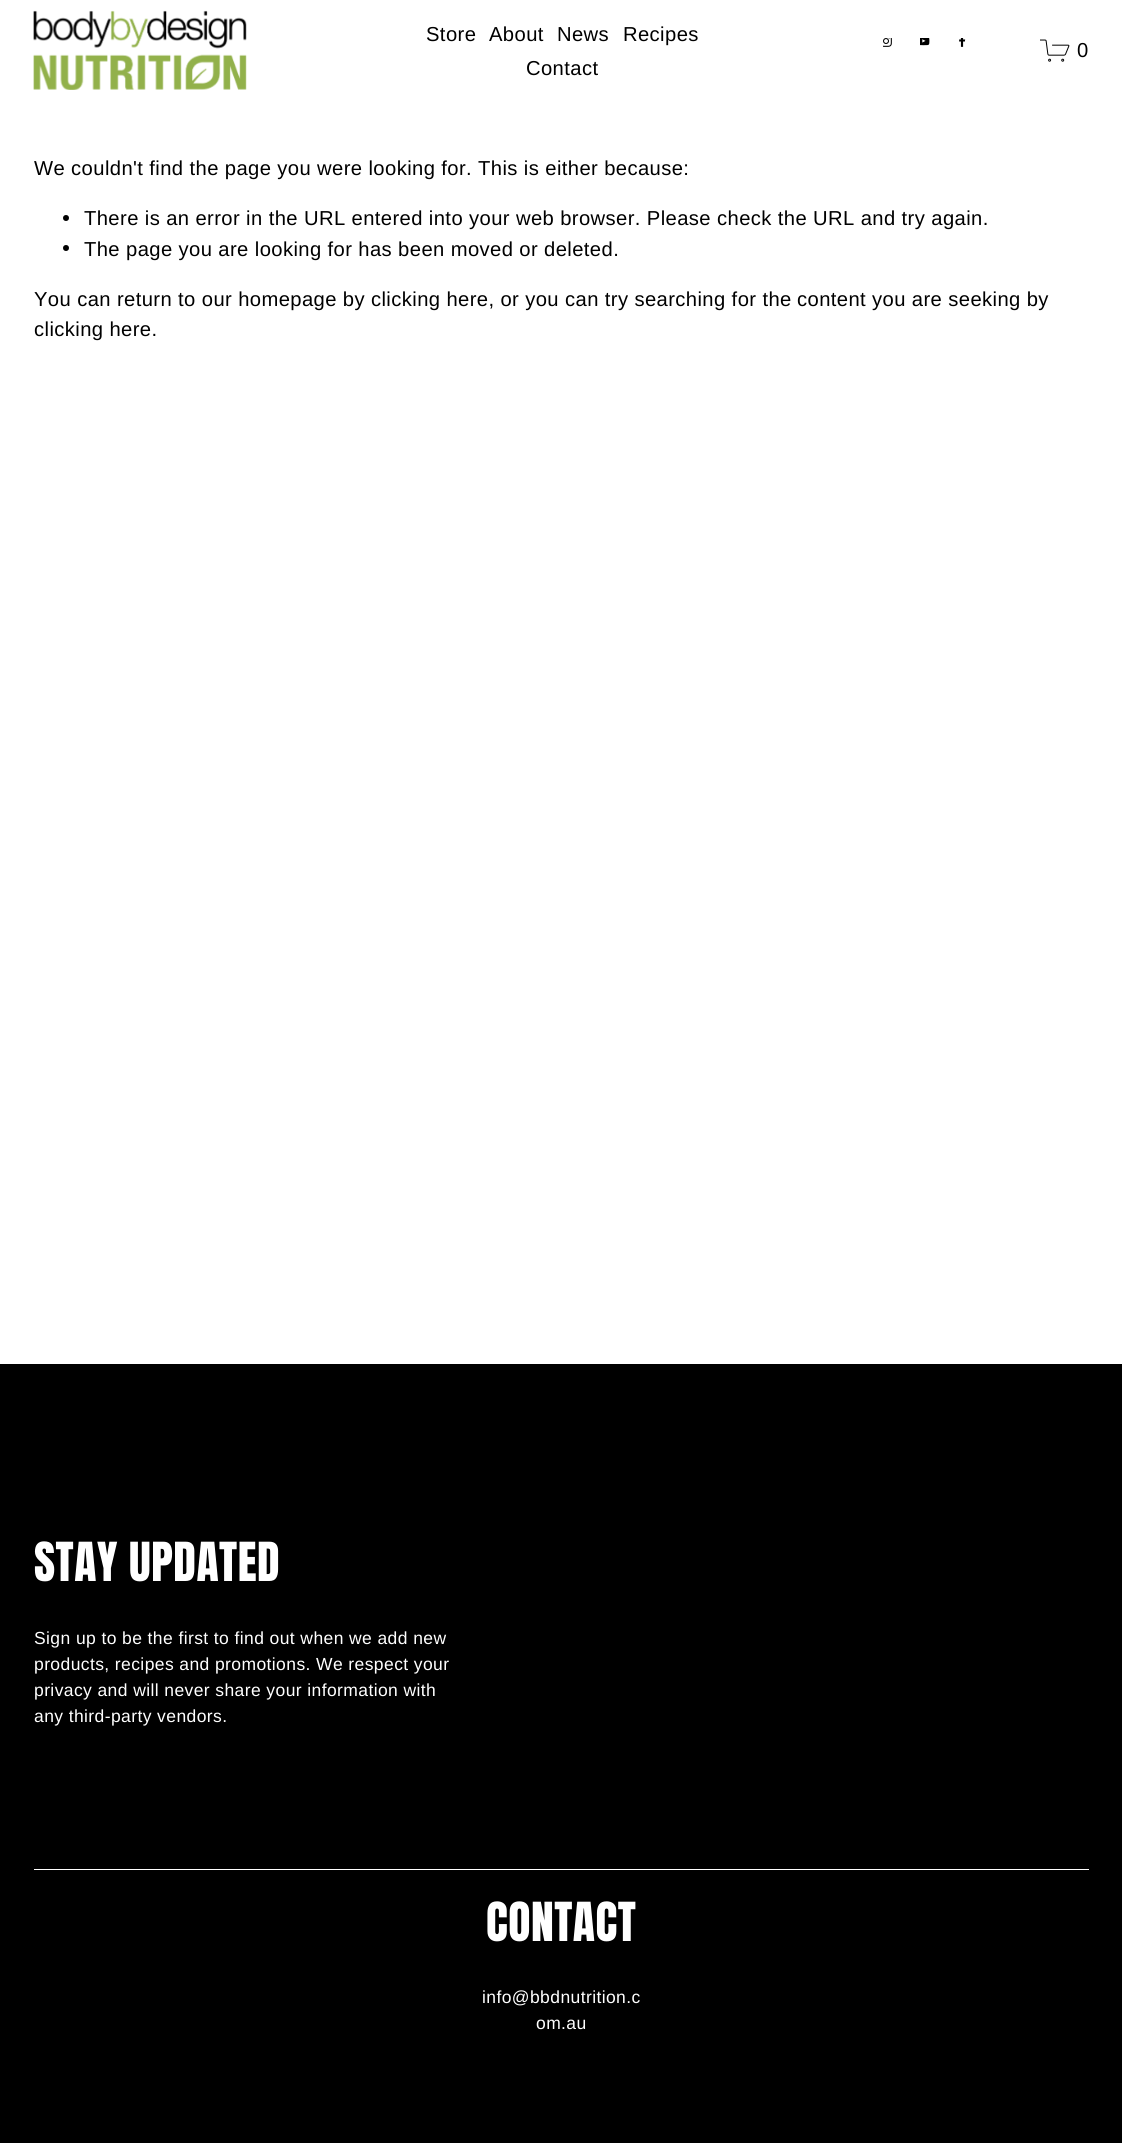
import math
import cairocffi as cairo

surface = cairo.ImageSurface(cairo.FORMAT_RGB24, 1122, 2143)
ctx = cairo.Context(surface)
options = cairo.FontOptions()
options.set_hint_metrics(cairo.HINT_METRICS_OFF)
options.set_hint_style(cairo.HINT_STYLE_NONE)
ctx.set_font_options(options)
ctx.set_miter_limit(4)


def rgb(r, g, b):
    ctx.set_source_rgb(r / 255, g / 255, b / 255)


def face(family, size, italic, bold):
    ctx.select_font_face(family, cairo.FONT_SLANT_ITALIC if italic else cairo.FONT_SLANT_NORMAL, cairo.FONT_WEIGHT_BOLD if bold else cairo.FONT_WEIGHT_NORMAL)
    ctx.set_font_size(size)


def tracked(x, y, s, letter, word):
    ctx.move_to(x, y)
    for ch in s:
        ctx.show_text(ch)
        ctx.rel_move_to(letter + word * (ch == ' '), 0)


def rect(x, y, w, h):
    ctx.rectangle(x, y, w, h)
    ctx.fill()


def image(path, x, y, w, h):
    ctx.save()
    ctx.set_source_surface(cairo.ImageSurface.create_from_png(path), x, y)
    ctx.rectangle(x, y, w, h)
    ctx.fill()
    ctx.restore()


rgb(255, 255, 255)
ctx.paint()
image('image0.png', 33, 10, 214, 80)
face('Liberation Sans', 20.2, 0, 0)
rgb(0, 0, 0)
tracked(426, 41, 'Store', 0.4, 0)
tracked(489, 41, 'About', 0.4, 0)
tracked(557, 41, 'News', 0.4, 0)
tracked(623, 41, 'Recipes', 0.4, 0)
tracked(526, 75, 'Contact', 0.4, 0)
image('image1.png', 883, 38, 9, 9)
image('image2.png', 920, 38, 10, 8)
image('image3.png', 959, 38, 7, 9)
image('image4.png', 1040, 39, 30, 23)
tracked(1077, 57, '0', 0.4, 0)
tracked(34, 175, 'We couldn\'t find the page you were looking for. This is either because:', 0.4, 0)
ctx.new_path()
ctx.arc(66, 218, 3, 0, 2 * math.pi)
ctx.fill()
tracked(84, 225, 'There is an error in the URL entered into your web browser. Please check the URL and try again.', 0.4, 0)
ctx.new_path()
ctx.arc(66, 248, 3, 0, 2 * math.pi)
ctx.fill()
tracked(84, 256, 'The page you are looking for has been moved or deleted.', 0.4, 0)
tracked(34, 306, 'You can return to our homepage by clicking here, or you can try searching for the', 0.4, 0)
tracked(797, 306, 'content you are seeking by', 0.4, 0)
tracked(34, 336, 'clicking here.', 0.4, 0)
rect(0, 1364, 1122, 779)
face('Anton', 45.75, 0, 0)
rgb(255, 255, 255)
tracked(34, 1581, 'STAY UPDATED', 0.5, 0)
face('Liberation Sans', 17.5, 0, 0)
tracked(34, 1644, 'Sign up to be the first to find out when we add new', 0.4, 0)
tracked(34, 1670, 'products, recipes and promotions. We respect your', 0.4, 0)
tracked(34, 1696, 'privacy and will never share your information with', 0.4, 0)
tracked(34, 1722, 'any third-party vendors.', 0.4, 0)
rect(34, 1869, 1055, 1)
face('Anton', 45.75, 0, 0)
tracked(486, 1941, 'CONTACT', 0.5, 0)
face('Liberation Sans', 17.5, 0, 0)
tracked(482, 2003, 'info@bbdnutrition.c', 0.4, 0)
tracked(536, 2029, 'om.au', 0.4, 0)
surface.write_to_png('render.png')
